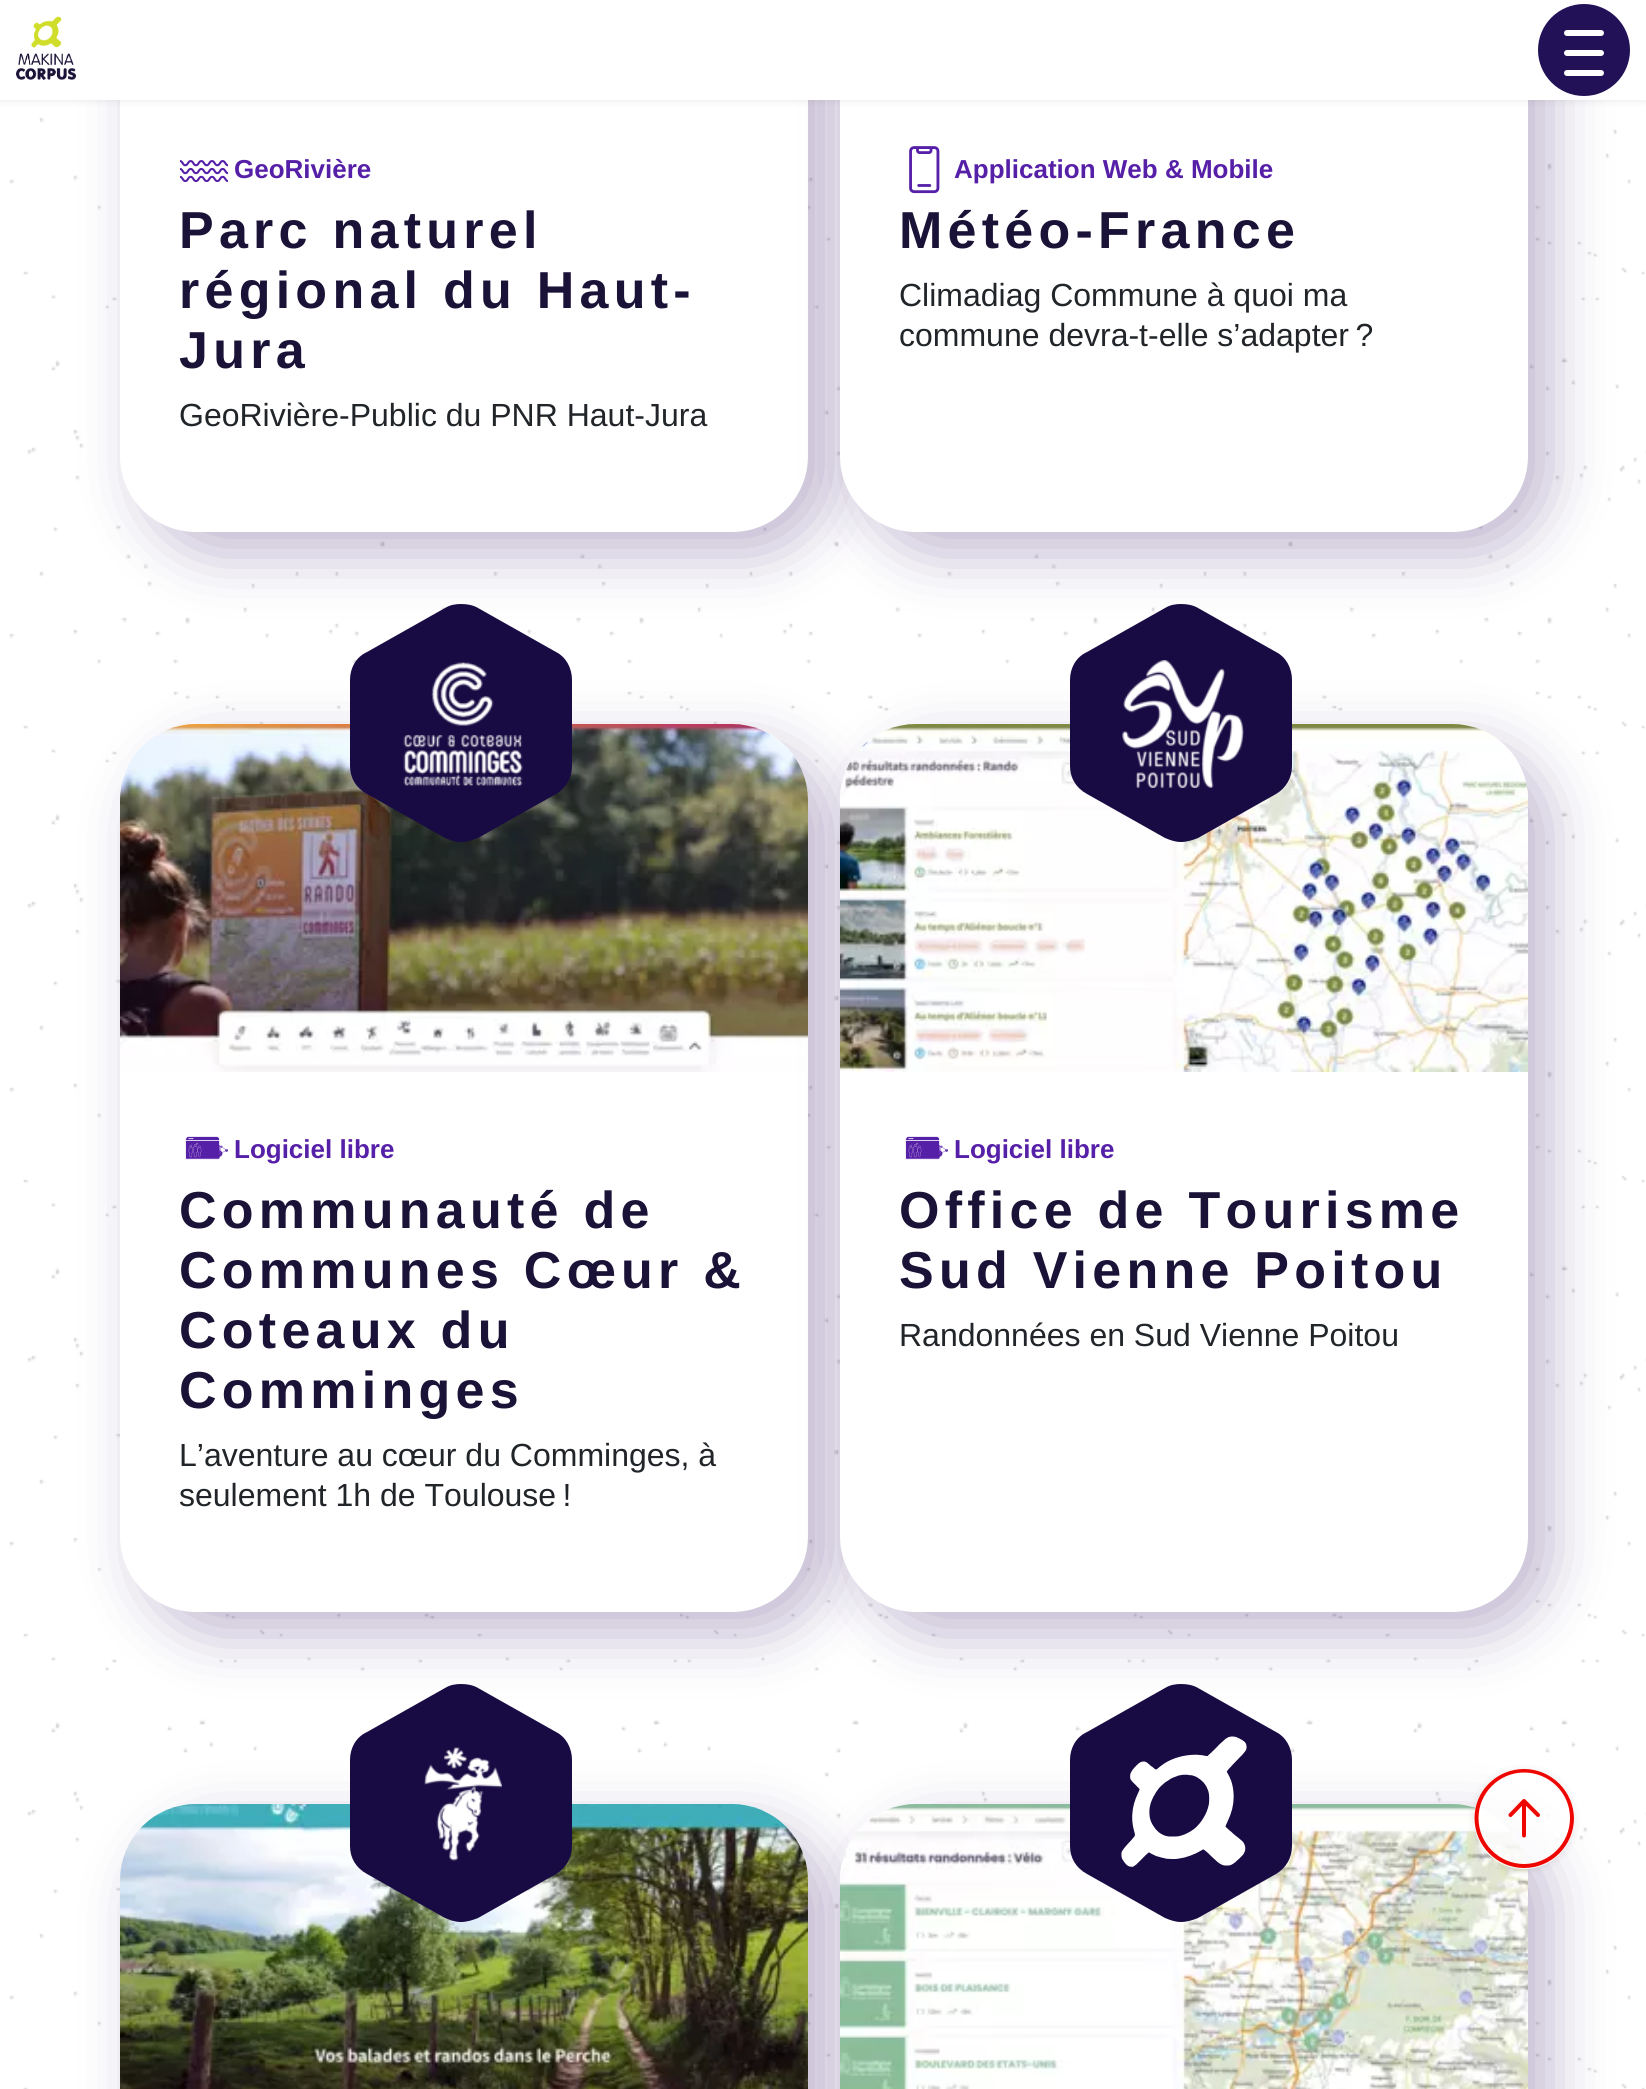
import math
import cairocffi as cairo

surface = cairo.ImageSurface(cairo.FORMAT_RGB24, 1646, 2089)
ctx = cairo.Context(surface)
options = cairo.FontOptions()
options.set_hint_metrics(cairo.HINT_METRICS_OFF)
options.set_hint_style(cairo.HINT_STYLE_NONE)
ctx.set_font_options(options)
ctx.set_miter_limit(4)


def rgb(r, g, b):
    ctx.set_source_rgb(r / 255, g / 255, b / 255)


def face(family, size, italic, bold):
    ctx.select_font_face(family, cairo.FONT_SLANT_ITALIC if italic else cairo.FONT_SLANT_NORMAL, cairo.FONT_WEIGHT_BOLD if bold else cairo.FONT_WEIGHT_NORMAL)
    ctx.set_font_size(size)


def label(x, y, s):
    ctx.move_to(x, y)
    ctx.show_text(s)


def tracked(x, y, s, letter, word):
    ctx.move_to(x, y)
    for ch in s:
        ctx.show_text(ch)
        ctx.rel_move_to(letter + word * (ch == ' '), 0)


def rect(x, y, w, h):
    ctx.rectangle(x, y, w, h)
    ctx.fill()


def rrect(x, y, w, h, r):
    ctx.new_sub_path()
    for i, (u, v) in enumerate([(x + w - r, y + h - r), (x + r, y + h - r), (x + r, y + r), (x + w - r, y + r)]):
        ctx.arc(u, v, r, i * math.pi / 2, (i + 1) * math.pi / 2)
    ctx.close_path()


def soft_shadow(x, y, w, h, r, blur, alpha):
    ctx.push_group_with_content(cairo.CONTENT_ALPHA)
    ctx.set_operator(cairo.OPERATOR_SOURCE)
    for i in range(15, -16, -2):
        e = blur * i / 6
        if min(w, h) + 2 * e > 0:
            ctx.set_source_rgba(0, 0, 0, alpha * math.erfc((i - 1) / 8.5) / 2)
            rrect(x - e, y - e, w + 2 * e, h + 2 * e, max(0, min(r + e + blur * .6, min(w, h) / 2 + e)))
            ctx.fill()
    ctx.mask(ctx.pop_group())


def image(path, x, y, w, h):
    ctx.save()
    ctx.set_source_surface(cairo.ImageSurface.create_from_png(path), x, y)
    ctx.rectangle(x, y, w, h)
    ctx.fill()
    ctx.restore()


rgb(255, 255, 255)
ctx.paint()
image('image0.png', 9, 117, 1637, 1972)
rgb(48, 14, 98)
soft_shadow(142, -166, 688, 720, 76, 30, 0.3)
rgb(255, 255, 255)
rrect(120, -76, 688, 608, 76)
ctx.fill()
rgb(48, 14, 98)
soft_shadow(862, -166, 688, 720, 76, 30, 0.3)
rgb(255, 255, 255)
rrect(840, -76, 688, 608, 76)
ctx.fill()
rgb(0, 0, 0)
soft_shadow(0, 0, 1646, 100, 0, 4, 0.1)
rgb(255, 255, 255)
rect(0, 0, 1646, 100)
image('image1.png', 16, 16, 60, 64)
rgb(34, 17, 87)
ctx.arc(1584, 50, 46, 0, 2 * math.pi)
ctx.fill()
rgb(255, 255, 255)
rrect(1564, 30, 40, 6, 3)
ctx.fill()
rrect(1564, 50, 40, 6, 3)
ctx.fill()
rrect(1564, 70, 40, 6, 3)
ctx.fill()
image('image2.png', 180, 160, 48, 22)
face('Liberation Sans', 26, 0, 1)
rgb(86, 31, 168)
label(234, 178, 'GeoRivière')
face('Liberation Sans', 52, 0, 1)
rgb(27, 18, 55)
tracked(179, 248, 'Parc naturel', 5.25, 0)
tracked(179, 308, 'régional du Haut-', 5.25, 0)
tracked(179, 368, 'Jura', 5.25, 0)
face('Liberation Sans', 32, 0, 0)
rgb(33, 37, 41)
label(179, 426, 'GeoRivière-Public du PNR Haut-Jura')
image('image3.png', 909, 146, 31, 48)
face('Liberation Sans', 26, 0, 1)
rgb(86, 31, 168)
label(954, 178, 'Application Web & Mobile')
face('Liberation Sans', 52, 0, 1)
rgb(27, 18, 55)
tracked(899, 248, 'Météo-France', 5.25, 0)
face('Liberation Sans', 32, 0, 0)
rgb(33, 37, 41)
label(899, 306, 'Climadiag Commune à quoi ma')
label(899, 346, 'commune devra-t-elle s’adapter ?')
rgb(48, 14, 98)
soft_shadow(142, 746, 688, 888, 76, 30, 0.3)
rgb(255, 255, 255)
rrect(120, 724, 688, 888, 76)
ctx.fill()
image('image5.png', 120, 724, 688, 348)
rgb(24, 11, 67)
ctx.new_path()
ctx.move_to(461, 604)
ctx.curve_to(455, 604, 450, 605, 445, 608)
ctx.line_to(367, 652)
ctx.curve_to(356, 657, 350, 668, 350, 680)
ctx.line_to(350, 766)
ctx.curve_to(350, 778, 356, 788, 367, 794)
ctx.line_to(445, 838)
ctx.curve_to(450, 840, 455, 842, 461, 842)
ctx.curve_to(467, 842, 473, 840, 478, 838)
ctx.line_to(556, 794)
ctx.curve_to(566, 788, 572, 778, 572, 766)
ctx.line_to(572, 680)
ctx.curve_to(572, 668, 566, 657, 556, 652)
ctx.line_to(478, 608)
ctx.curve_to(473, 605, 467, 604, 461, 604)
ctx.close_path()
ctx.fill()
image('image4.png', 403, 661, 120, 126)
image('image6.png', 185, 1136, 43, 24)
face('Liberation Sans', 26, 0, 1)
rgb(86, 31, 168)
label(234, 1158, 'Logiciel libre')
face('Liberation Sans', 52, 0, 1)
rgb(27, 18, 55)
tracked(179, 1228, 'Communauté de', 5.25, 0)
tracked(179, 1288, 'Communes Cœur &', 5.25, 0)
tracked(179, 1348, 'Coteaux du', 5.25, 0)
tracked(179, 1408, 'Comminges', 5.25, 0)
face('Liberation Sans', 32, 0, 0)
rgb(33, 37, 41)
label(179, 1466, 'L’aventure au cœur du Comminges, à')
label(179, 1506, 'seulement 1h de Toulouse !')
rgb(48, 14, 98)
soft_shadow(862, 746, 688, 888, 76, 30, 0.3)
rgb(255, 255, 255)
rrect(840, 724, 688, 888, 76)
ctx.fill()
image('image8.png', 840, 724, 688, 348)
rgb(24, 11, 67)
ctx.new_path()
ctx.move_to(1181, 604)
ctx.curve_to(1175, 604, 1170, 605, 1165, 608)
ctx.line_to(1087, 652)
ctx.curve_to(1076, 657, 1070, 668, 1070, 680)
ctx.line_to(1070, 766)
ctx.curve_to(1070, 778, 1076, 788, 1087, 794)
ctx.line_to(1165, 838)
ctx.curve_to(1170, 840, 1175, 842, 1181, 842)
ctx.curve_to(1187, 842, 1193, 840, 1198, 838)
ctx.line_to(1276, 794)
ctx.curve_to(1286, 788, 1292, 778, 1292, 766)
ctx.line_to(1292, 680)
ctx.curve_to(1292, 668, 1286, 657, 1276, 652)
ctx.line_to(1198, 608)
ctx.curve_to(1193, 605, 1187, 604, 1181, 604)
ctx.close_path()
ctx.fill()
image('image7.png', 1122, 660, 122, 128)
image('image6.png', 905, 1136, 43, 24)
face('Liberation Sans', 26, 0, 1)
rgb(86, 31, 168)
label(954, 1158, 'Logiciel libre')
face('Liberation Sans', 52, 0, 1)
rgb(27, 18, 55)
tracked(899, 1228, 'Office de Tourisme', 5.25, 0)
tracked(899, 1288, 'Sud Vienne Poitou', 5.25, 0)
face('Liberation Sans', 32, 0, 0)
rgb(33, 37, 41)
label(899, 1346, 'Randonnées en Sud Vienne Poitou')
rgb(48, 14, 98)
soft_shadow(142, 1826, 688, 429, 76, 30, 0.3)
rgb(255, 255, 255)
rrect(120, 1804, 688, 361, 76)
ctx.fill()
image('image10.png', 120, 1804, 688, 285)
rgb(24, 11, 67)
ctx.new_path()
ctx.move_to(461, 1684)
ctx.curve_to(455, 1684, 450, 1685, 445, 1688)
ctx.line_to(367, 1732)
ctx.curve_to(356, 1737, 350, 1748, 350, 1760)
ctx.line_to(350, 1846)
ctx.curve_to(350, 1858, 356, 1868, 367, 1874)
ctx.line_to(445, 1918)
ctx.curve_to(450, 1920, 455, 1922, 461, 1922)
ctx.curve_to(467, 1922, 473, 1920, 478, 1918)
ctx.line_to(556, 1874)
ctx.curve_to(566, 1868, 572, 1858, 572, 1846)
ctx.line_to(572, 1760)
ctx.curve_to(572, 1748, 566, 1737, 556, 1732)
ctx.line_to(478, 1688)
ctx.curve_to(473, 1685, 467, 1684, 461, 1684)
ctx.close_path()
ctx.fill()
image('image9.png', 424, 1747, 78, 114)
rgb(48, 14, 98)
soft_shadow(862, 1826, 688, 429, 76, 30, 0.3)
rgb(255, 255, 255)
rrect(840, 1804, 688, 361, 76)
ctx.fill()
image('image12.png', 840, 1804, 688, 285)
rgb(24, 11, 67)
ctx.new_path()
ctx.move_to(1181, 1684)
ctx.curve_to(1175, 1684, 1170, 1685, 1165, 1688)
ctx.line_to(1087, 1732)
ctx.curve_to(1076, 1737, 1070, 1748, 1070, 1760)
ctx.line_to(1070, 1846)
ctx.curve_to(1070, 1858, 1076, 1868, 1087, 1874)
ctx.line_to(1165, 1918)
ctx.curve_to(1170, 1920, 1175, 1922, 1181, 1922)
ctx.curve_to(1187, 1922, 1193, 1920, 1198, 1918)
ctx.line_to(1276, 1874)
ctx.curve_to(1286, 1868, 1292, 1858, 1292, 1846)
ctx.line_to(1292, 1760)
ctx.curve_to(1292, 1748, 1286, 1737, 1276, 1732)
ctx.line_to(1198, 1688)
ctx.curve_to(1193, 1685, 1187, 1684, 1181, 1684)
ctx.close_path()
ctx.fill()
image('image11.png', 1121, 1736, 126, 131)
ctx.save()
ctx.set_fill_rule(cairo.FILL_RULE_EVEN_ODD)
ctx.new_path()
ctx.move_to(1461, 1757)
ctx.line_to(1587, 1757)
ctx.line_to(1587, 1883)
ctx.line_to(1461, 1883)
ctx.close_path()
ctx.move_to(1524, 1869)
ctx.curve_to(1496.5, 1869, 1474, 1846.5, 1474, 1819)
ctx.curve_to(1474, 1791.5, 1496.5, 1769, 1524, 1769)
ctx.curve_to(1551.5, 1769, 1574, 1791.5, 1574, 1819)
ctx.curve_to(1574, 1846.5, 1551.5, 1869, 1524, 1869)
ctx.close_path()
ctx.clip()
rgb(0, 0, 0)
soft_shadow(1474, 1770, 100, 100, 50, 4, 0.1)
ctx.restore()
ctx.set_source_rgba(1, 1, 1, 0.82)
ctx.new_path()
ctx.move_to(1524, 1869)
ctx.curve_to(1496, 1869, 1474, 1847, 1474, 1819)
ctx.curve_to(1474, 1791, 1496, 1769, 1524, 1769)
ctx.curve_to(1552, 1769, 1574, 1791, 1574, 1819)
ctx.curve_to(1574, 1847, 1552, 1869, 1524, 1869)
ctx.close_path()
ctx.fill()
ctx.save()
ctx.new_path()
ctx.move_to(1524, 1869)
ctx.curve_to(1496.5, 1869, 1474, 1846.5, 1474, 1819)
ctx.curve_to(1474, 1791.5, 1496.5, 1769, 1524, 1769)
ctx.curve_to(1551.5, 1769, 1574, 1791.5, 1574, 1819)
ctx.curve_to(1574, 1846.5, 1551.5, 1869, 1524, 1869)
ctx.close_path()
ctx.clip()
ctx.new_path()
ctx.move_to(1524, 1866)
ctx.curve_to(1498, 1866, 1476.5, 1844.5, 1476.5, 1818)
ctx.curve_to(1476.5, 1792, 1498, 1770.5, 1524, 1770.5)
ctx.curve_to(1550.5, 1770.5, 1572, 1792, 1572, 1818)
ctx.curve_to(1572, 1844.5, 1550.5, 1866, 1524, 1866)
ctx.close_path()
rgb(238, 7, 1)
ctx.set_line_width(4)
ctx.set_line_cap(cairo.LINE_CAP_ROUND)
ctx.set_line_join(cairo.LINE_JOIN_ROUND)
ctx.stroke()
ctx.restore()
ctx.new_path()
ctx.move_to(1510.5, 1815)
ctx.line_to(1524, 1801)
ctx.line_to(1538, 1815)
ctx.move_to(1524, 1801)
ctx.line_to(1524, 1835.5)
rgb(238, 7, 1)
ctx.set_line_width(4)
ctx.set_line_cap(cairo.LINE_CAP_ROUND)
ctx.set_line_join(cairo.LINE_JOIN_ROUND)
ctx.stroke()
surface.write_to_png('render.png')
